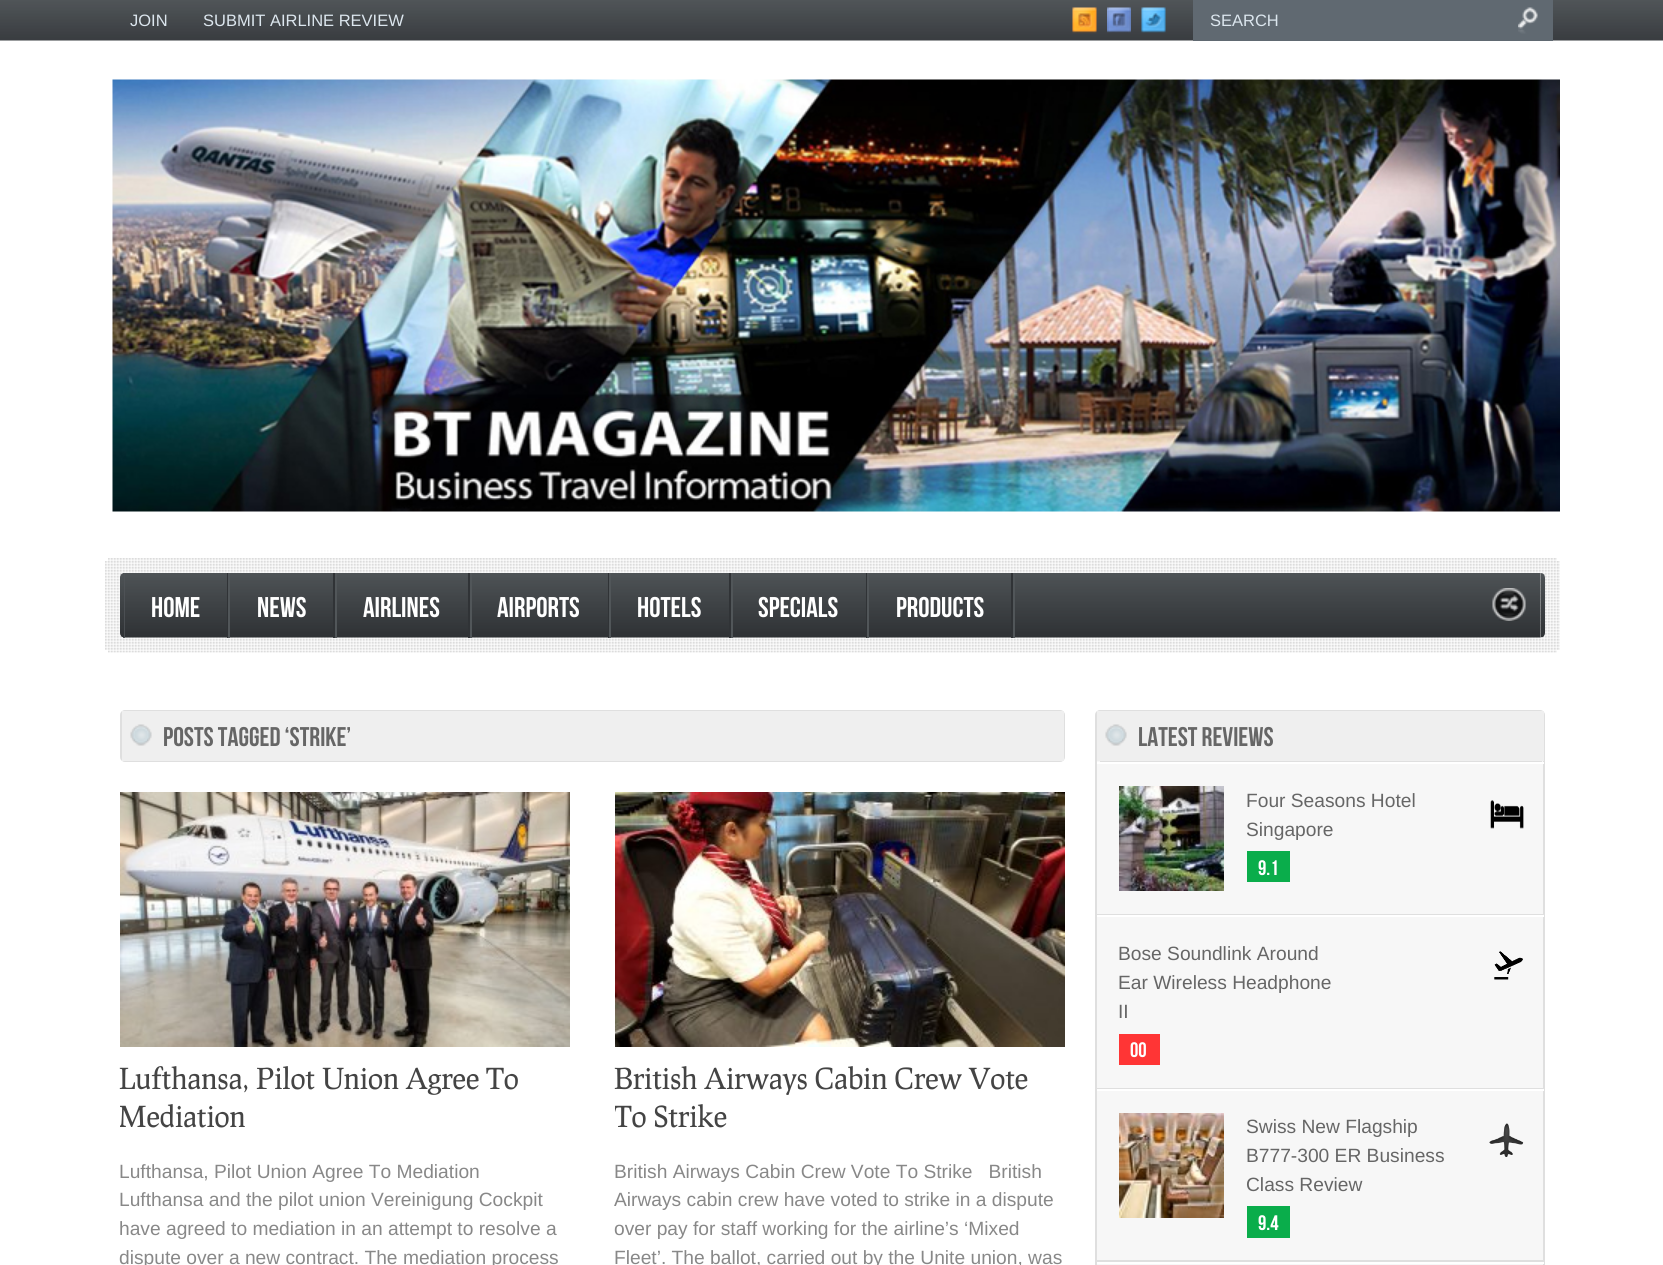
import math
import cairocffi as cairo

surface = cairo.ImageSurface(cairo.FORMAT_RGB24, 1663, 1265)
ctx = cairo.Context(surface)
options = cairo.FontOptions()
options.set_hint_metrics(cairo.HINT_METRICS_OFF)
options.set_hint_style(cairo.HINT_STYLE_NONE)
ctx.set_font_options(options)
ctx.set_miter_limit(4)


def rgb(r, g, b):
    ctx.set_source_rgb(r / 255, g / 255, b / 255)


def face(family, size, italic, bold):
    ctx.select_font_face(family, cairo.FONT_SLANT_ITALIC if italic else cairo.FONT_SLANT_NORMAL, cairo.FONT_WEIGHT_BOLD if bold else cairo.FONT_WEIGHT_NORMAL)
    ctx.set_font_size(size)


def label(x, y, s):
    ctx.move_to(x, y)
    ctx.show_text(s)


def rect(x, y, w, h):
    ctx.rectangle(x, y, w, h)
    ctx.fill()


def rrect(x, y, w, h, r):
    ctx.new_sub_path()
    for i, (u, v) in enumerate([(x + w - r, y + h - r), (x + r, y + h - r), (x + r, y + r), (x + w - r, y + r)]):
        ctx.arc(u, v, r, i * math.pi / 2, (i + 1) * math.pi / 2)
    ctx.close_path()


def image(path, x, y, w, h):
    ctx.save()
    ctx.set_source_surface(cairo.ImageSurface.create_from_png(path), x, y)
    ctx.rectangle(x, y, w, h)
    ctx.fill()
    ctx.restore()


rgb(255, 255, 255)
ctx.paint()
image('image0.png', 0, 0, 1663, 41)
face('Liberation Sans', 16.5, 0, 0)
rgb(220, 230, 238)
label(130, 26, 'JOIN')
label(203, 26, 'SUBMIT AIRLINE REVIEW')
image('image1.png', 1072, 7, 25, 27)
image('image2.png', 1107, 7, 24, 26)
image('image3.png', 1141, 7, 25, 26)
rgb(96, 105, 113)
rect(1193, 0, 360, 41)
image('image4.png', 1518, 7, 20, 27)
rgb(220, 230, 238)
label(1210, 26, 'SEARCH')
image('image5.png', 112, 79, 1448, 433)
image('image6.png', 105, 558, 1455, 95)
rgb(255, 255, 255)
rect(105, 558, 3, 3)
rect(1557, 558, 3, 3)
rgb(81, 86, 89)
rect(123, 573, 2, 65)
image('image7.png', 120, 573, 5, 65)
image('image10.png', 1540, 573, 5, 65)
image('image8.png', 125, 573, 1416, 65)
rgb(48, 51, 54)
rect(227, 573, 1, 65)
face('Bebas Neue', 28.5, 0, 0)
rgb(255, 255, 255)
label(151, 617, 'HOME')
rgb(48, 51, 54)
rect(333, 573, 2, 65)
rgb(81, 86, 89)
rect(228, 573, 2, 65)
rgb(255, 255, 255)
label(257, 617, 'NEWS')
rgb(48, 51, 54)
rect(468, 573, 2, 65)
rgb(81, 86, 89)
rect(335, 573, 2, 65)
rgb(255, 255, 255)
label(363, 617, 'AIRLINES')
rgb(48, 51, 54)
rect(608, 573, 1, 65)
rgb(81, 86, 89)
rect(470, 573, 2, 65)
rgb(255, 255, 255)
label(497, 617, 'AIRPORTS')
rgb(48, 51, 54)
rect(729, 573, 2, 65)
rgb(81, 86, 89)
rect(609, 573, 2, 65)
rgb(255, 255, 255)
label(637, 617, 'HOTELS')
rgb(48, 51, 54)
rect(866, 573, 1, 65)
rgb(81, 86, 89)
rect(731, 573, 2, 65)
rgb(255, 255, 255)
label(758, 617, 'SPECIALS')
rgb(48, 51, 54)
rect(1011, 573, 2, 65)
rgb(81, 86, 89)
rect(867, 573, 2, 65)
rgb(255, 255, 255)
label(896, 617, 'PRODUCTS')
rgb(81, 86, 89)
rect(1013, 573, 2, 65)
image('image9.png', 1492, 588, 34, 33)
rgb(255, 255, 255)
rect(105, 650, 3, 3)
rect(1557, 650, 3, 3)
rrect(121, 711, 943, 50, 4)
rgb(223, 223, 223)
ctx.stroke()
rgb(239, 239, 239)
rect(122, 711, 942, 50)
image('image11.png', 130, 724, 22, 22)
face('Bebas Neue', 27, 0, 0)
rgb(102, 102, 102)
label(163, 746, 'POSTS TAGGED ‘STRIKE’')
image('image12.png', 120, 792, 450, 255)
face('Prociono', 28.75, 0, 0)
rgb(68, 68, 68)
label(119, 1089, 'Lufthansa, Pilot Union Agree To')
ctx.save()
ctx.rectangle(120, 792, 450, 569)
ctx.clip()
label(119, 1127, 'Mediation')
ctx.restore()
face('Liberation Sans', 19.2, 0, 0)
rgb(136, 136, 136)
label(119, 1178, 'Lufthansa, Pilot Union Agree To Mediation')
label(119, 1206, 'Lufthansa and the pilot union Vereinigung Cockpit')
label(119, 1235, 'have agreed to mediation in an attempt to resolve a')
label(119, 1264, 'dispute over a new contract. The mediation process')
image('image13.png', 615, 792, 450, 255)
face('Prociono', 28.75, 0, 0)
rgb(68, 68, 68)
label(614, 1089, 'British Airways Cabin Crew Vote')
ctx.save()
ctx.rectangle(615, 792, 450, 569)
ctx.clip()
label(614, 1127, 'To Strike')
ctx.restore()
face('Liberation Sans', 19.2, 0, 0)
rgb(136, 136, 136)
label(614, 1178, 'British Airways Cabin Crew Vote To Strike   British')
label(614, 1206, 'Airways cabin crew have voted to strike in a dispute')
label(614, 1235, 'over pay for staff working for the airline’s ‘Mixed')
label(614, 1264, 'Fleet’. The ballot, carried out by the Unite union, was')
rgb(247, 247, 247)
rrect(1096, 711, 448, 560, 4)
ctx.fill_preserve()
rgb(223, 223, 223)
ctx.stroke()
rect(1100, 761, 442, 1)
rgb(239, 239, 239)
rect(1097, 711, 447, 50)
image('image11.png', 1105, 724, 22, 22)
face('Bebas Neue', 27, 0, 0)
rgb(102, 102, 102)
label(1138, 746, 'LATEST REVIEWS')
rgb(255, 255, 255)
rect(1097, 762, 447, 2)
rgb(223, 223, 223)
rect(1097, 914, 447, 1)
image('image14.png', 1119, 786, 105, 105)
face('Liberation Sans', 19.2, 0, 0)
rgb(102, 102, 102)
label(1246, 807, 'Four Seasons Hotel')
label(1246, 836, 'Singapore')
rgb(10, 173, 75)
rect(1247, 851, 43, 31)
face('Bebas Neue', 21, 0, 0)
rgb(255, 255, 255)
label(1258, 875, '9.1')
image('image15.png', 1490, 800, 34, 29)
rect(1097, 915, 447, 2)
rgb(223, 223, 223)
rect(1097, 1088, 447, 1)
face('Liberation Sans', 19.2, 0, 0)
rgb(102, 102, 102)
label(1118, 960, 'Bose Soundlink Around')
label(1118, 989, 'Ear Wireless Headphone')
label(1118, 1018, 'II')
rgb(255, 53, 53)
rect(1119, 1034, 41, 31)
face('Bebas Neue', 21, 0, 0)
rgb(255, 255, 255)
label(1130, 1057, '00')
image('image16.png', 1494, 951, 29, 29)
rect(1097, 1089, 447, 2)
rgb(223, 223, 223)
rect(1097, 1260, 447, 2)
image('image17.png', 1119, 1113, 105, 105)
face('Liberation Sans', 19.2, 0, 0)
rgb(102, 102, 102)
label(1246, 1133, 'Swiss New Flagship')
label(1246, 1162, 'B777-300 ER Business')
label(1246, 1191, 'Class Review')
rgb(10, 173, 75)
rect(1247, 1206, 43, 32)
face('Bebas Neue', 21, 0, 0)
rgb(255, 255, 255)
label(1258, 1230, '9.4')
image('image18.png', 1489, 1123, 35, 34)
rect(1097, 1262, 447, 2)
surface.write_to_png('render.png')
